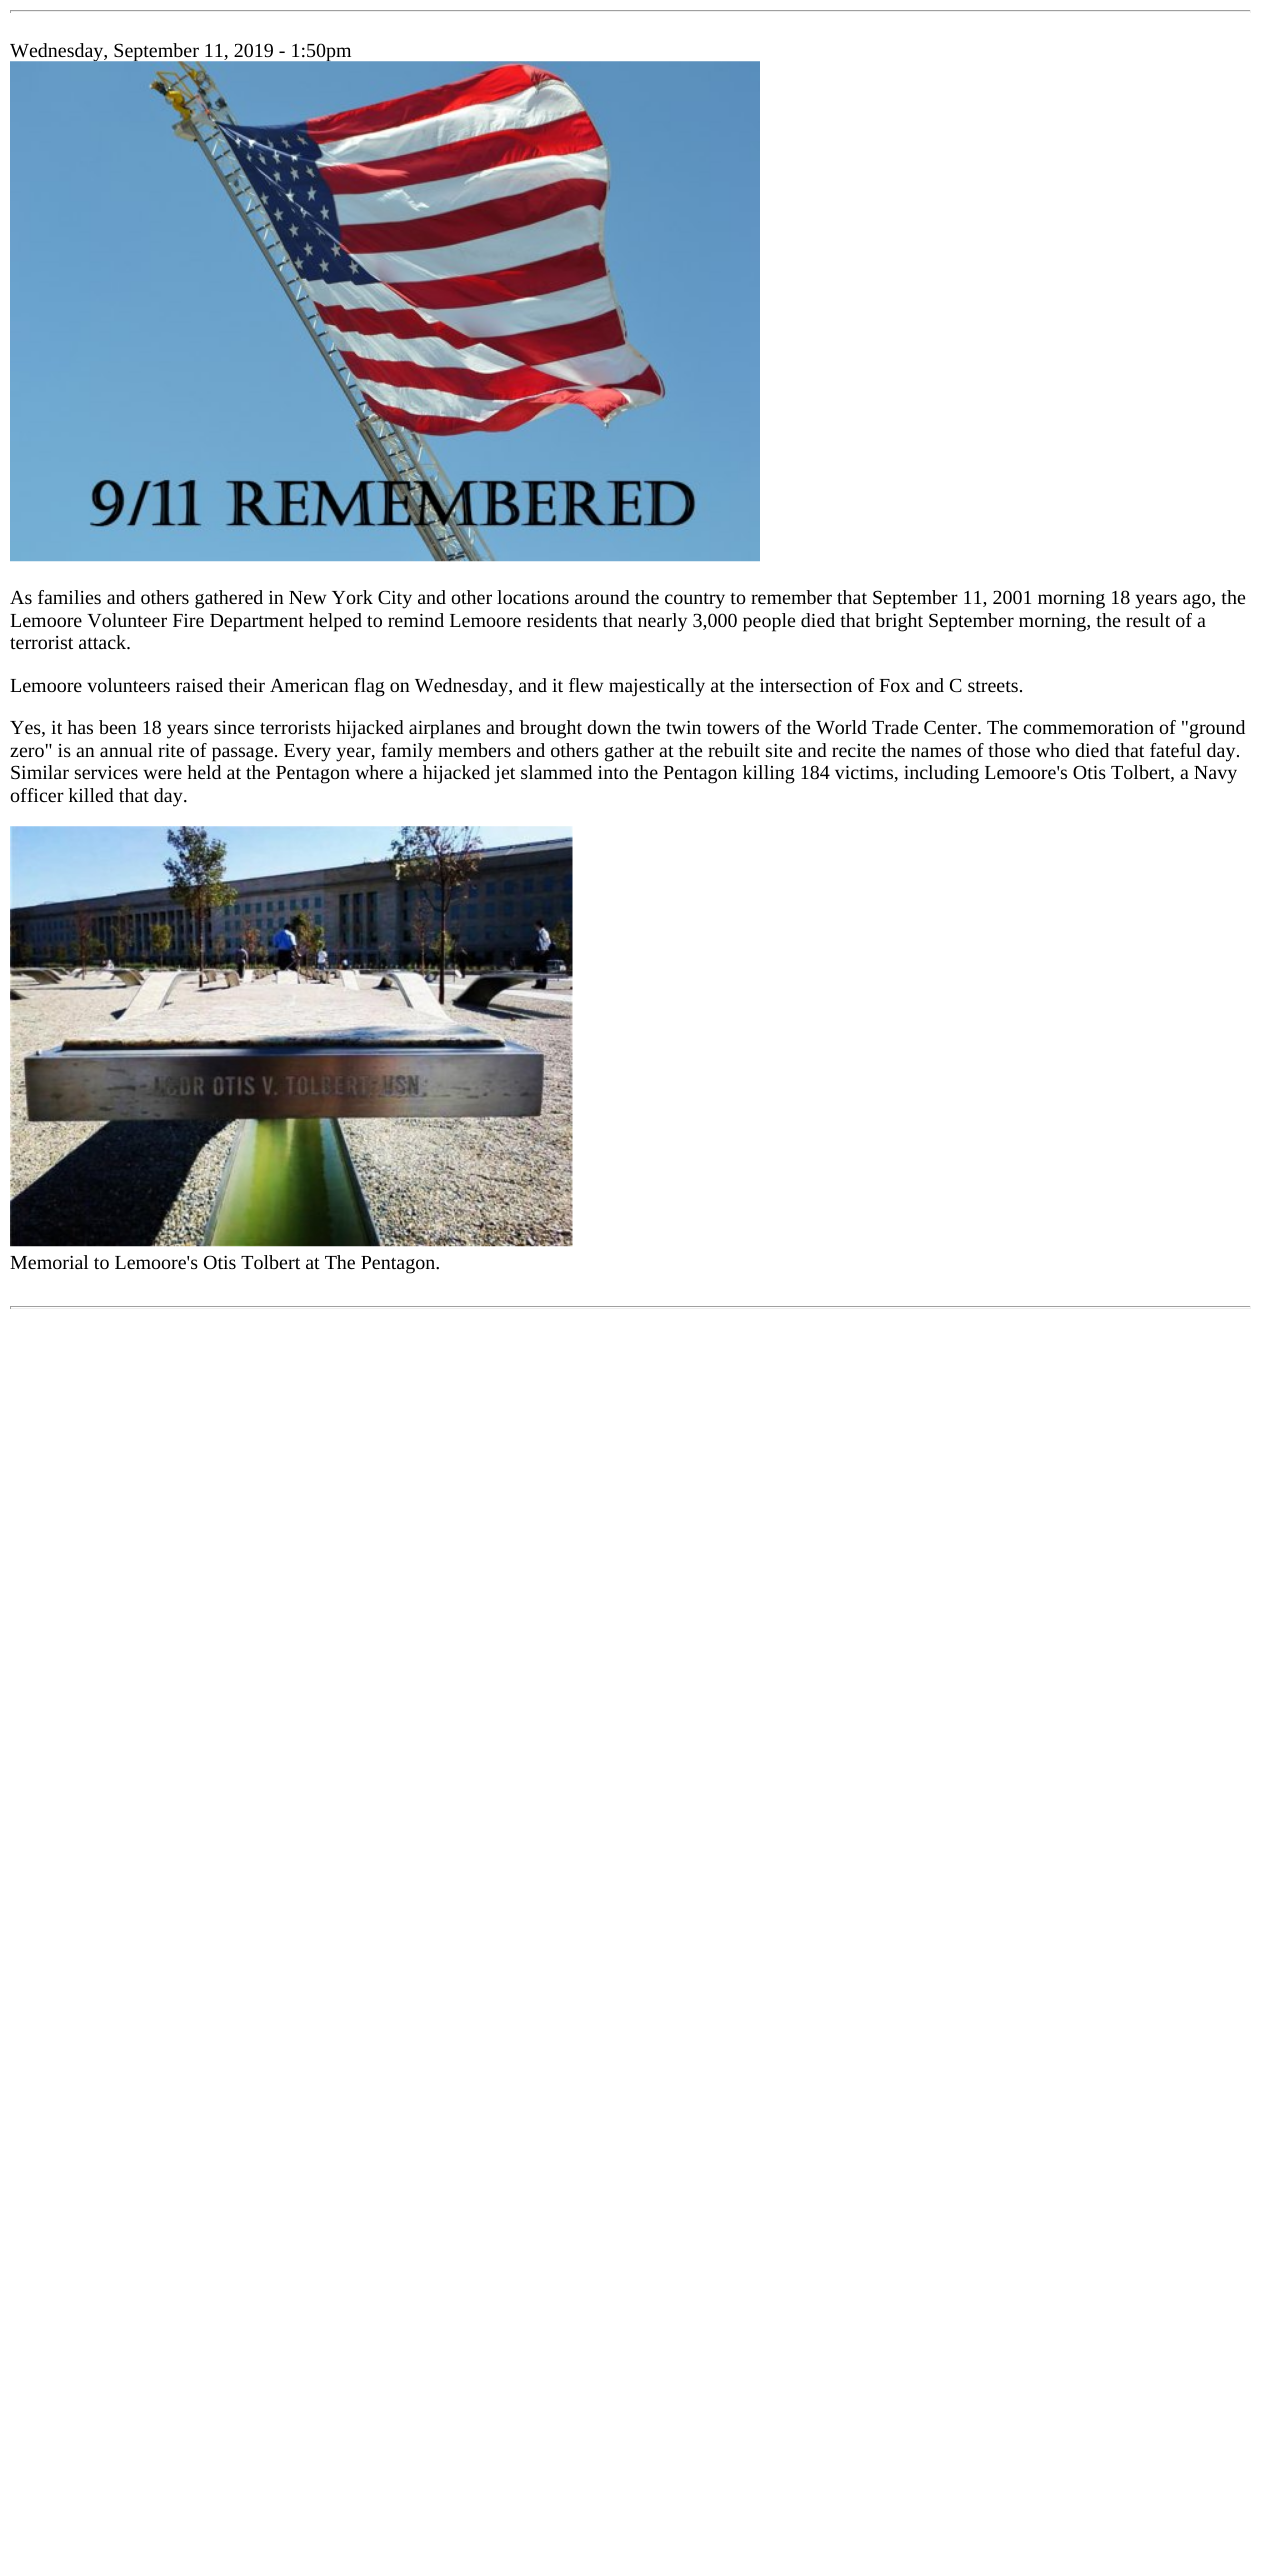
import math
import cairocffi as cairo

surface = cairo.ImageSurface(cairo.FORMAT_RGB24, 1261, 2564)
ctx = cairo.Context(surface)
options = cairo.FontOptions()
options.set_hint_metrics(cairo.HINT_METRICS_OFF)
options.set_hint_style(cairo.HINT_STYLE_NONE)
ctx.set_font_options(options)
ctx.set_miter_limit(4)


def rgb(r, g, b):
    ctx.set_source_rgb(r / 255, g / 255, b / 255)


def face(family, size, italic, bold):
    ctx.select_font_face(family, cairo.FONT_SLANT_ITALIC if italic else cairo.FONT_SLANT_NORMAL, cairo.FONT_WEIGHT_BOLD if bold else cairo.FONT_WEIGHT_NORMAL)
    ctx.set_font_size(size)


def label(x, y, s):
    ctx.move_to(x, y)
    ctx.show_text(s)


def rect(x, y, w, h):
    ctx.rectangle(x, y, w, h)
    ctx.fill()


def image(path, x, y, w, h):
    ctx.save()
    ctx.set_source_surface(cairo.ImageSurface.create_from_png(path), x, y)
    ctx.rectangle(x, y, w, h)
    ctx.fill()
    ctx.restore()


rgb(255, 255, 255)
ctx.paint()
rgb(159, 159, 159)
rect(10, 10, 1241, 1)
rgb(238, 238, 238)
rect(1250, 10, 1, 3)
rect(10, 11, 1241, 1)
rgb(159, 159, 159)
rect(10, 10, 1, 3)
face('Liberation Serif', 20, 0, 0)
rgb(0, 0, 0)
label(10, 57, 'Wednesday, September 11, 2019 - 1:50pm')
image('image0.png', 10, 61, 750, 501)
label(10, 604, 'As families and others gathered in New York City and other locations around the country to remember that September 11, 2001 morning 18 years ago, the')
label(10, 627, 'Lemoore Volunteer Fire Department helped to remind Lemoore residents that nearly 3,000 people died that bright September morning, the result of a')
label(10, 649, 'terrorist attack.')
label(10, 692, 'Lemoore volunteers raised their American flag on Wednesday, and it flew majestically at the intersection of Fox and C streets.')
label(10, 734, 'Yes, it has been 18 years since terrorists hijacked airplanes and brought down the twin towers of the World Trade Center. The commemoration of "ground')
label(10, 757, 'zero" is an annual rite of passage. Every year, family members and others gather at the rebuilt site and recite the names of those who died that fateful day.')
label(10, 779, 'Similar services were held at the Pentagon where a hijacked jet slammed into the Pentagon killing 184 victims, including Lemoore\'s Otis Tolbert, a Navy')
label(10, 802, 'officer killed that day.')
image('image1.png', 10, 826, 563, 421)
label(10, 1269, 'Memorial to Lemoore\'s Otis Tolbert at The Pentagon.')
rgb(159, 159, 159)
rect(10, 1306, 1241, 1)
rgb(238, 238, 238)
rect(1250, 1306, 1, 3)
rect(10, 1308, 1241, 1)
rgb(159, 159, 159)
rect(10, 1306, 1, 3)
surface.write_to_png('render.png')
